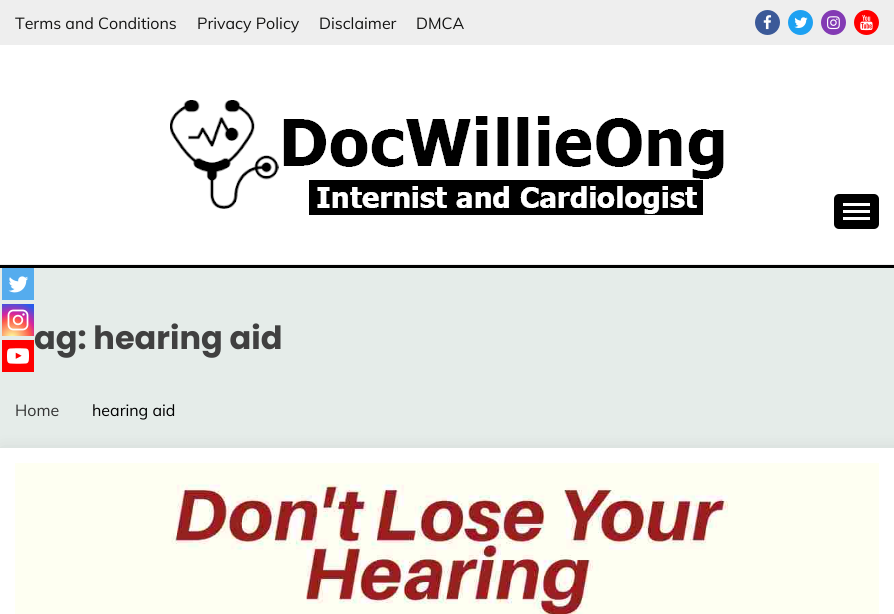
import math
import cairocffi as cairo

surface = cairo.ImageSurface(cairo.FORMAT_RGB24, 894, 614)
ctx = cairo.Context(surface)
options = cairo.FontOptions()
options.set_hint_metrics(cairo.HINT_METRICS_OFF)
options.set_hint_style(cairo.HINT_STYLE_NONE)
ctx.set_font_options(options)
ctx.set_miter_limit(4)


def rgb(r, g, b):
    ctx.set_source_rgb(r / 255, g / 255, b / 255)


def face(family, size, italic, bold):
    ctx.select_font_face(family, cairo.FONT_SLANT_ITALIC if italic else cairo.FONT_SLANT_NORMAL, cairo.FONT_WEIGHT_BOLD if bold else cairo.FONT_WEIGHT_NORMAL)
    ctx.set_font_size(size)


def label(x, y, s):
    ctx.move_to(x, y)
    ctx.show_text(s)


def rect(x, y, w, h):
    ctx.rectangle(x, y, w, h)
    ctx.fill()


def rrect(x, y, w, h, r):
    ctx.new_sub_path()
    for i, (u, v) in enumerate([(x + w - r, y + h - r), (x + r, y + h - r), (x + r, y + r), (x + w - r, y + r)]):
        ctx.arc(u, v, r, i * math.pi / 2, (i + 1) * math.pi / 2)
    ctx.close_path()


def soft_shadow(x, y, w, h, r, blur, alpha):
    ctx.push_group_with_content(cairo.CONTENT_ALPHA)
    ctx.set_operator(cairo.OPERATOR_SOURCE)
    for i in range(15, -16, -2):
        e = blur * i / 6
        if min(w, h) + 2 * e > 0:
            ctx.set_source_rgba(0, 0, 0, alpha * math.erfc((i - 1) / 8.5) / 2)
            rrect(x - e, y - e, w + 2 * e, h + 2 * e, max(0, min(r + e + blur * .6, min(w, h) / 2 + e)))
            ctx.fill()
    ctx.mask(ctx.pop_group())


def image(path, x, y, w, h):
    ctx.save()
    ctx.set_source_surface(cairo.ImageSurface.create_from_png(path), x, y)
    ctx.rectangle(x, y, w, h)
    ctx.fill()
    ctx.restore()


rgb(229, 236, 233)
ctx.paint()
rgb(255, 255, 255)
rect(0, 45, 894, 219)
rgb(238, 238, 238)
rect(0, 0, 894, 45)
face('Muli', 16, 0, 0)
rgb(20, 20, 19)
label(15, 29, 'Terms and Conditions')
label(197, 29, 'Privacy Policy')
label(319, 29, 'Disclaimer')
label(416, 29, 'DMCA')
rgb(59, 89, 152)
ctx.new_path()
ctx.arc(767.5, 22.5, 12.5, 0, 2 * math.pi)
ctx.fill()
image('image0.png', 763, 15, 9, 15)
rgb(29, 161, 242)
ctx.arc(800.5, 22.5, 12.5, 0, 2 * math.pi)
ctx.fill()
image('image1.png', 794, 17, 14, 11)
rgb(131, 58, 180)
ctx.arc(833.5, 22.5, 12.5, 0, 2 * math.pi)
ctx.fill()
image('image2.png', 827, 16, 13, 14)
rgb(255, 0, 0)
ctx.arc(866.5, 22.5, 12.5, 0, 2 * math.pi)
ctx.fill()
image('image3.png', 860, 15, 13, 16)
rgb(238, 238, 238)
rect(0, 264, 894, 1)
image('image4.png', 170, 100, 554, 115)
rgb(0, 0, 0)
rrect(834, 194, 45, 35, 5)
ctx.fill()
rgb(255, 255, 255)
rect(843, 203, 27, 3)
rect(843, 210, 27, 3)
rect(843, 217, 27, 3)
rgb(0, 0, 0)
rect(0, 265, 894, 3)
rgb(85, 172, 238)
rect(2, 268, 32, 32)
image('image5.png', 8, 276, 21, 17)
gradient = cairo.RadialGradient(12, 338, 0, 12, 338, 41)
gradient.add_color_stop_rgba(0, 0.992, 0.957, 0.592, 1)
gradient.add_color_stop_rgba(0.05, 0.992, 0.957, 0.592, 1)
gradient.add_color_stop_rgba(0.45, 0.992, 0.349, 0.286, 1)
gradient.add_color_stop_rgba(0.6, 0.839, 0.141, 0.624, 1)
gradient.add_color_stop_rgba(0.9, 0.157, 0.353, 0.922, 1)
ctx.set_source(gradient)
rect(2, 304, 32, 32)
image('image6.png', 7, 309, 22, 22)
rgb(255, 0, 0)
rect(2, 340, 32, 32)
image('image7.png', 7, 348, 22, 16)
face('Poppins', 32, 0, 1)
rgb(64, 64, 64)
label(34, 349, 'ag: hearing aid')
face('Muli', 16, 0, 0)
rgb(51, 51, 51)
label(15, 416, 'Home')
rgb(0, 0, 0)
label(92, 416, 'hearing aid')
rgb(0, 0, 0)
soft_shadow(2, 453, 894, 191, 0, 10, 0.14)
rgb(255, 255, 255)
rect(0, 448, 894, 166)
image('image8.png', 15, 463, 864, 151)
surface.write_to_png('render.png')
